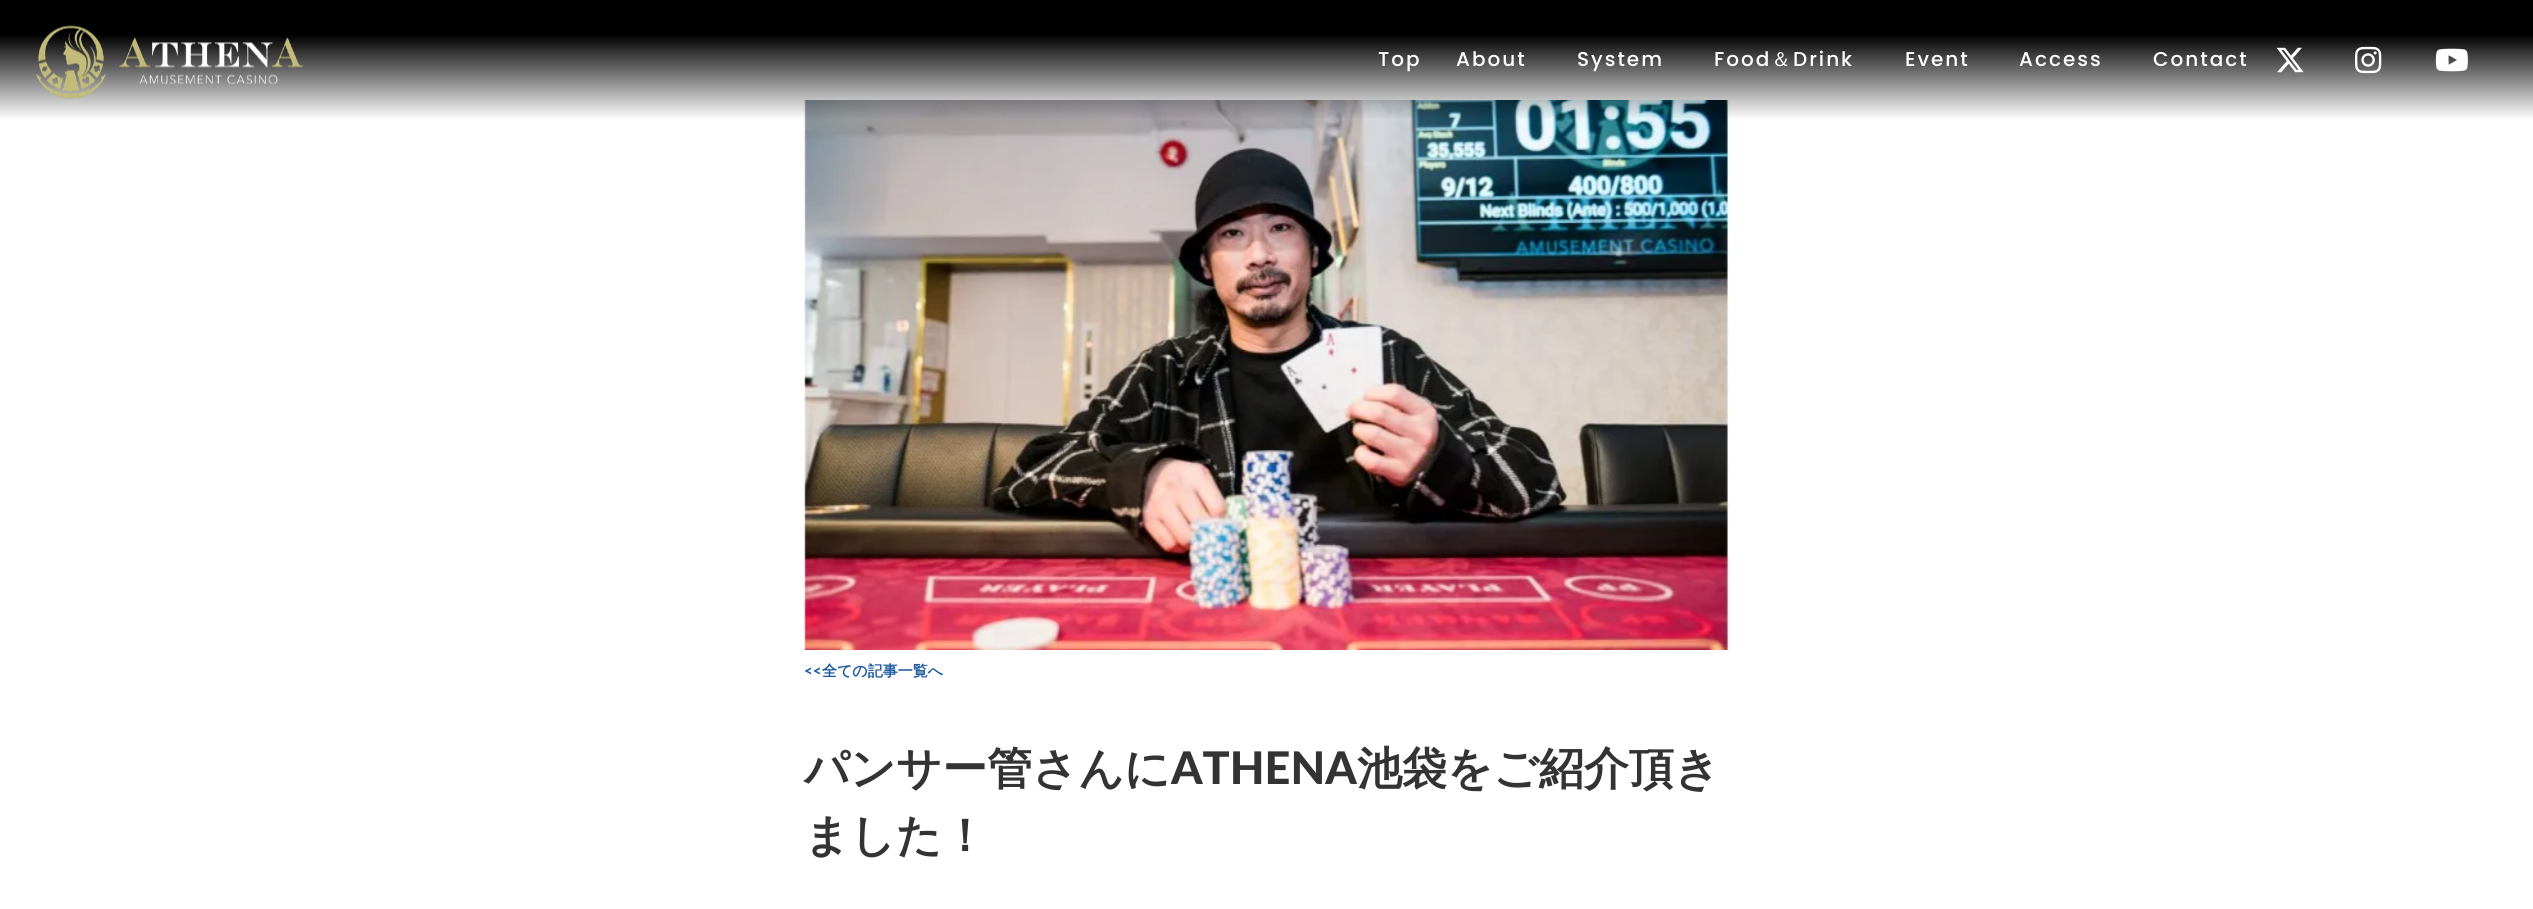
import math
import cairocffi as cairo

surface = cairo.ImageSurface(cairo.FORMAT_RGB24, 2533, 909)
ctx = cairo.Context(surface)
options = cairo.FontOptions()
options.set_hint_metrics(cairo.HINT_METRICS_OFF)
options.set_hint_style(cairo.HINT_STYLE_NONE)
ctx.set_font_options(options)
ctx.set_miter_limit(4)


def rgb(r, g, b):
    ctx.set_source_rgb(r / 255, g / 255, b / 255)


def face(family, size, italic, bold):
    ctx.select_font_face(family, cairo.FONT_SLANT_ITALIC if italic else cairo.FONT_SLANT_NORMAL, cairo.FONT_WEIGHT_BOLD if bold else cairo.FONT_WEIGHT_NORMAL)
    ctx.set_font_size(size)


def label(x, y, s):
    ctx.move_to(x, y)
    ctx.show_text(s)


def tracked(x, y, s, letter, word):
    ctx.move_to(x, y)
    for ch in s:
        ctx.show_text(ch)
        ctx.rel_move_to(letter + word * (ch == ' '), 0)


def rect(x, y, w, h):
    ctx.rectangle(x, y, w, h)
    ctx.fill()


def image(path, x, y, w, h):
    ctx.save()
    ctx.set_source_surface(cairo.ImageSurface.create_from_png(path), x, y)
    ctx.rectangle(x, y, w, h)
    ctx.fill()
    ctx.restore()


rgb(255, 255, 255)
ctx.paint()
image('image4.png', 804, 100, 926, 550)
gradient = cairo.LinearGradient(1267, 0, 1267, 120)
gradient.add_color_stop_rgba(0, 0, 0, 0, 1)
gradient.add_color_stop_rgba(0.29, 0, 0, 0, 1)
gradient.add_color_stop_rgba(1, 0, 0, 0, 0)
ctx.set_source(gradient)
rect(0, 0, 2533, 118)
image('image0.png', 36, 25, 267, 74)
face('Poppins Medium', 20, 0, 0)
rgb(255, 255, 255)
tracked(1378, 66, 'Top', 2, 0)
tracked(1456, 66, 'About', 2, 0)
tracked(1577, 66, 'System', 2, 0)
tracked(1714, 66, 'Food', 2, 0)
face('WenQuanYi Zen Hei Medium', 20, 0, 0)
tracked(1771, 66, '＆', 2, 0)
face('Poppins Medium', 20, 0, 0)
tracked(1793, 66, 'Drink', 2, 0)
tracked(1905, 66, 'Event', 2, 0)
tracked(2019, 66, 'Access', 2, 0)
tracked(2153, 66, 'Contact', 2, 0)
image('image1.png', 2276, 47, 28, 26)
image('image2.png', 2355, 46, 27, 28)
image('image3.png', 2435, 48, 33, 24)
face('Lato Black', 15, 0, 0)
rgb(30, 90, 159)
label(804, 676, '<<')
face('WenQuanYi Zen Hei', 15, 0, 1)
label(822, 676, '全ての記事一覧へ')
face('WenQuanYi Zen Hei', 45, 0, 1)
rgb(51, 51, 51)
label(804, 784, 'パンサー管さんに')
face('Lato Black', 45, 0, 0)
label(1171, 784, 'ATHENA')
face('WenQuanYi Zen Hei', 45, 0, 1)
label(1357, 784, '池袋をご紹介頂き')
label(804, 851, 'ました！')
surface.write_to_png('render.png')
